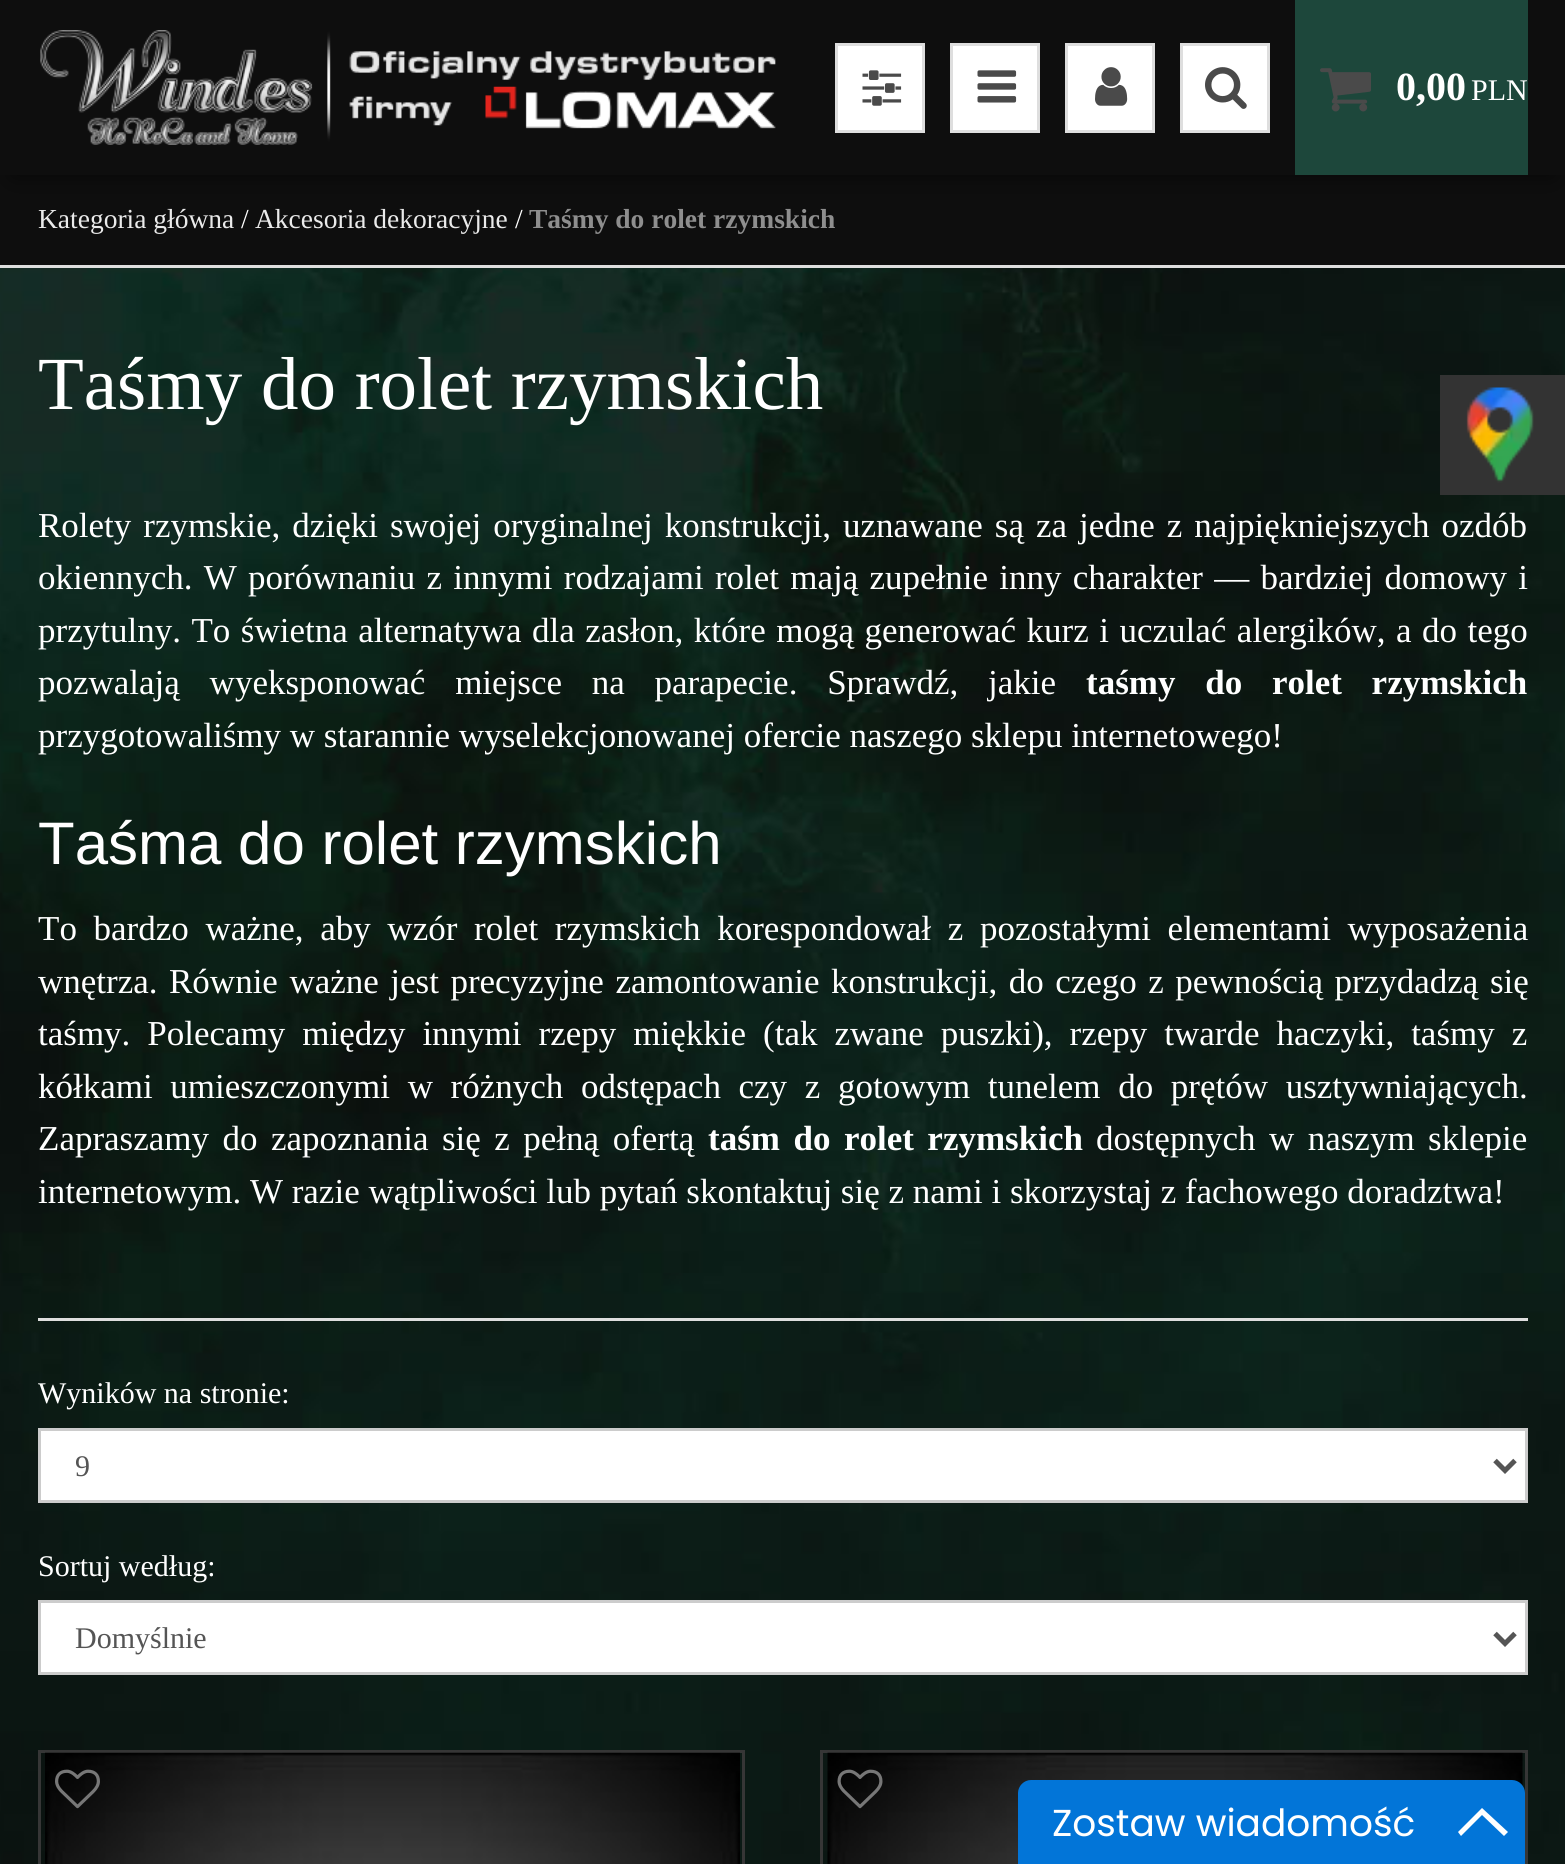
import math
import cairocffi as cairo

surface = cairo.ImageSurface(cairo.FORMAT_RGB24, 1565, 1864)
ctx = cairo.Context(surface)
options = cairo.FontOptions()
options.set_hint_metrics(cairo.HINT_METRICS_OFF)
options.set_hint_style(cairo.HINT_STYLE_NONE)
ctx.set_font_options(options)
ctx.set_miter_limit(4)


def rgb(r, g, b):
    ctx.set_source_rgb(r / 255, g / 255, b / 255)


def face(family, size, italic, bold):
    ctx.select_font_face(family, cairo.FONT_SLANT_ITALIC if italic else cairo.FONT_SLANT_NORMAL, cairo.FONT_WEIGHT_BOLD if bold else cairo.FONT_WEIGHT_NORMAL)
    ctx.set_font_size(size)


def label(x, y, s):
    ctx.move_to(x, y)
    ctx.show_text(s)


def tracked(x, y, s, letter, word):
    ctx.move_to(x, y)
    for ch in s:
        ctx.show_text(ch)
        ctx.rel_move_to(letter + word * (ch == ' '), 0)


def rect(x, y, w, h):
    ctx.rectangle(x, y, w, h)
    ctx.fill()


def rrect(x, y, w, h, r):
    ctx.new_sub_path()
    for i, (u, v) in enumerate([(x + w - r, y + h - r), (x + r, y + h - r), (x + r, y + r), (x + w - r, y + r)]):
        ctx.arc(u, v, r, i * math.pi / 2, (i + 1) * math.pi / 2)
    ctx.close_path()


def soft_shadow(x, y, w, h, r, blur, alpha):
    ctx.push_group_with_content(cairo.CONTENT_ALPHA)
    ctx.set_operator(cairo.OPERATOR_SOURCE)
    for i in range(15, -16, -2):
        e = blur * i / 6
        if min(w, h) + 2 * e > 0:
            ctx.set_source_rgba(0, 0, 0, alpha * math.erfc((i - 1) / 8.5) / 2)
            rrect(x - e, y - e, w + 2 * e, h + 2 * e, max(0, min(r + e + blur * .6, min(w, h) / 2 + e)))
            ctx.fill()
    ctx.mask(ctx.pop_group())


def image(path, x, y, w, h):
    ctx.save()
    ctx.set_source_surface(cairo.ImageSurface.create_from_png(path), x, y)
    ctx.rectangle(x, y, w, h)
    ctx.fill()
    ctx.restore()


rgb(255, 255, 255)
ctx.paint()
image('image0.png', 0, 268, 1565, 1596)
rgb(14, 14, 14)
rect(0, 175, 1565, 90)
rgb(0, 0, 0)
soft_shadow(13, 25, 1540, 150, 0, 12.5, 0.5)
rgb(14, 14, 14)
rect(0, 0, 1565, 175)
image('image1.png', 40, 30, 736, 115)
rgb(255, 255, 255)
ctx.rectangle(836.5, 44.5, 87, 87)
ctx.fill_preserve()
rgb(222, 222, 222)
ctx.set_line_width(3)
ctx.stroke()
image('image2.png', 862, 70, 40, 36)
rgb(255, 255, 255)
ctx.rectangle(951.5, 44.5, 87, 87)
ctx.fill_preserve()
rgb(222, 222, 222)
ctx.stroke()
image('image3.png', 977, 70, 40, 33)
rgb(255, 255, 255)
ctx.rectangle(1066.5, 44.5, 87, 87)
ctx.fill_preserve()
rgb(222, 222, 222)
ctx.stroke()
image('image4.png', 1095, 67, 33, 39)
rgb(255, 255, 255)
ctx.rectangle(1181.5, 44.5, 87, 87)
ctx.fill_preserve()
rgb(222, 222, 222)
ctx.stroke()
image('image5.png', 1205, 67, 42, 42)
rgb(29, 71, 59)
rect(1295, 0, 233, 175)
image('image6.png', 1320, 68, 51, 44)
face('Liberation Serif', 40, 0, 1)
rgb(255, 255, 255)
label(1396, 100, '0,00')
face('Liberation Serif', 30, 0, 0)
label(1471, 100, 'PLN')
rgb(222, 222, 222)
rect(0, 265, 1565, 3)
face('Liberation Serif', 27.5, 0, 0)
rgb(234, 234, 234)
label(38, 228, 'Kategoria główna')
rgb(255, 255, 255)
label(241, 228, '/')
rgb(234, 234, 234)
label(255, 228, 'Akcesoria dekoracyjne')
rgb(255, 255, 255)
label(515, 228, '/')
face('Liberation Serif', 27.5, 0, 1)
rgb(142, 142, 142)
label(529, 228, 'Taśmy do rolet rzymskich')
face('Liberation Serif', 75, 0, 0)
rgb(255, 255, 255)
label(38, 409, 'Taśmy do rolet rzymskich')
rgb(222, 222, 222)
rect(38, 1318, 1490, 3)
face('Liberation Serif', 35, 0, 0)
rgb(255, 255, 255)
tracked(38, 537, 'Rolety rzymskie, dzięki swojej oryginalnej konstrukcji, uznawane są za jedne z najpiękniejszych ozdób', 0, 3.25)
tracked(38, 589, 'okiennych. W porównaniu z innymi rodzajami rolet mają zupełnie inny charakter — bardziej domowy i', 0, 2.5)
tracked(38, 642, 'przytulny. To świetna alternatywa dla zasłon, które mogą generować kurz i uczulać alergików, a do tego', 0, 1.75)
tracked(38, 694, 'pozwalają wyeksponować miejsce na parapecie. Sprawdź, jakie', 0, 21)
face('Liberation Serif', 35, 0, 1)
tracked(1086, 694, 'taśmy do rolet rzymskich', 0, 21)
face('Liberation Serif', 35, 0, 0)
label(38, 747, 'przygotowaliśmy w starannie wyselekcjonowanej ofercie naszego sklepu internetowego!')
face('Liberation Sans', 60, 0, 0)
label(38, 864, 'Taśma do rolet rzymskich')
face('Liberation Serif', 35, 0, 0)
tracked(38, 940, 'To bardzo ważne, aby wzór rolet rzymskich korespondował z pozostałymi elementami wyposażenia', 0, 7.9)
tracked(38, 993, 'wnętrza. Równie ważne jest precyzyjne zamontowanie konstrukcji, do czego z pewnością przydadzą się', 0, 2.75)
tracked(38, 1045, 'taśmy. Polecamy między innymi rzepy miękkie (tak zwane puszki), rzepy twarde haczyki, taśmy z', 0, 8.25)
tracked(38, 1098, 'kółkami umieszczonymi w różnych odstępach czy z gotowym tunelem do prętów usztywniających.', 0, 8.9)
tracked(38, 1150, 'Zapraszamy do zapoznania się z pełną ofertą', 0, 4.75)
face('Liberation Serif', 35, 0, 1)
tracked(708, 1150, 'taśm do rolet rzymskich', 0, 4.75)
face('Liberation Serif', 35, 0, 0)
tracked(1096, 1150, 'dostępnych w naszym sklepie', 0, 4.75)
label(38, 1203, 'internetowym. W razie wątpliwości lub pytań skontaktuj się z nami i skorzystaj z fachowego doradztwa!')
face('Liberation Serif', 30, 0, 0)
label(38, 1403, 'Wyników na stronie:')
ctx.rectangle(39.5, 1429.5, 1487, 72)
ctx.fill_preserve()
rgb(204, 204, 204)
ctx.stroke()
ctx.new_path()
ctx.move_to(1495, 1460.5)
ctx.line_to(1505, 1470.5)
ctx.line_to(1515, 1460.5)
rgb(85, 85, 85)
ctx.set_line_width(5)
ctx.stroke()
label(75, 1476, '9')
rgb(255, 255, 255)
label(38, 1576, 'Sortuj według:')
ctx.rectangle(39.5, 1601.5, 1487, 72)
ctx.fill_preserve()
rgb(204, 204, 204)
ctx.set_line_width(3)
ctx.stroke()
ctx.new_path()
ctx.move_to(1495, 1633.5)
ctx.line_to(1505, 1643.5)
ctx.line_to(1515, 1633.5)
rgb(85, 85, 85)
ctx.set_line_width(5)
ctx.stroke()
label(75, 1648, 'Domyślnie')
ctx.rectangle(39.5, 1751.5, 704, 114)
rgb(54, 54, 54)
ctx.set_line_width(3)
ctx.stroke()
image('image7.png', 45, 1752, 695, 112)
image('image8.png', 55, 1769, 45, 40)
ctx.rectangle(821.5, 1751.5, 705, 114)
ctx.stroke()
image('image9.png', 827, 1752, 696, 112)
image('image10.png', 837, 1769, 46, 40)
rgb(51, 51, 51)
rect(1440, 375, 125, 120)
image('image11.png', 1466, 387, 68, 96)
rgb(2, 117, 216)
ctx.new_path()
ctx.move_to(1031, 1780)
ctx.line_to(1512, 1780)
ctx.curve_to(1519, 1780, 1525, 1786, 1525, 1793)
ctx.line_to(1525, 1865)
ctx.line_to(1018, 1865)
ctx.line_to(1018, 1793)
ctx.curve_to(1018, 1786, 1024, 1780, 1031, 1780)
ctx.close_path()
ctx.fill()
face('Poppins', 37.5, 0, 0)
rgb(255, 255, 255)
label(1052, 1836, 'Zostaw wiadomość')
ctx.new_path()
ctx.move_to(1482, 1808)
ctx.line_to(1508, 1832)
ctx.line_to(1504, 1836)
ctx.line_to(1482, 1815)
ctx.line_to(1461, 1836)
ctx.line_to(1458, 1832)
ctx.close_path()
ctx.fill()
surface.write_to_png('render.png')
